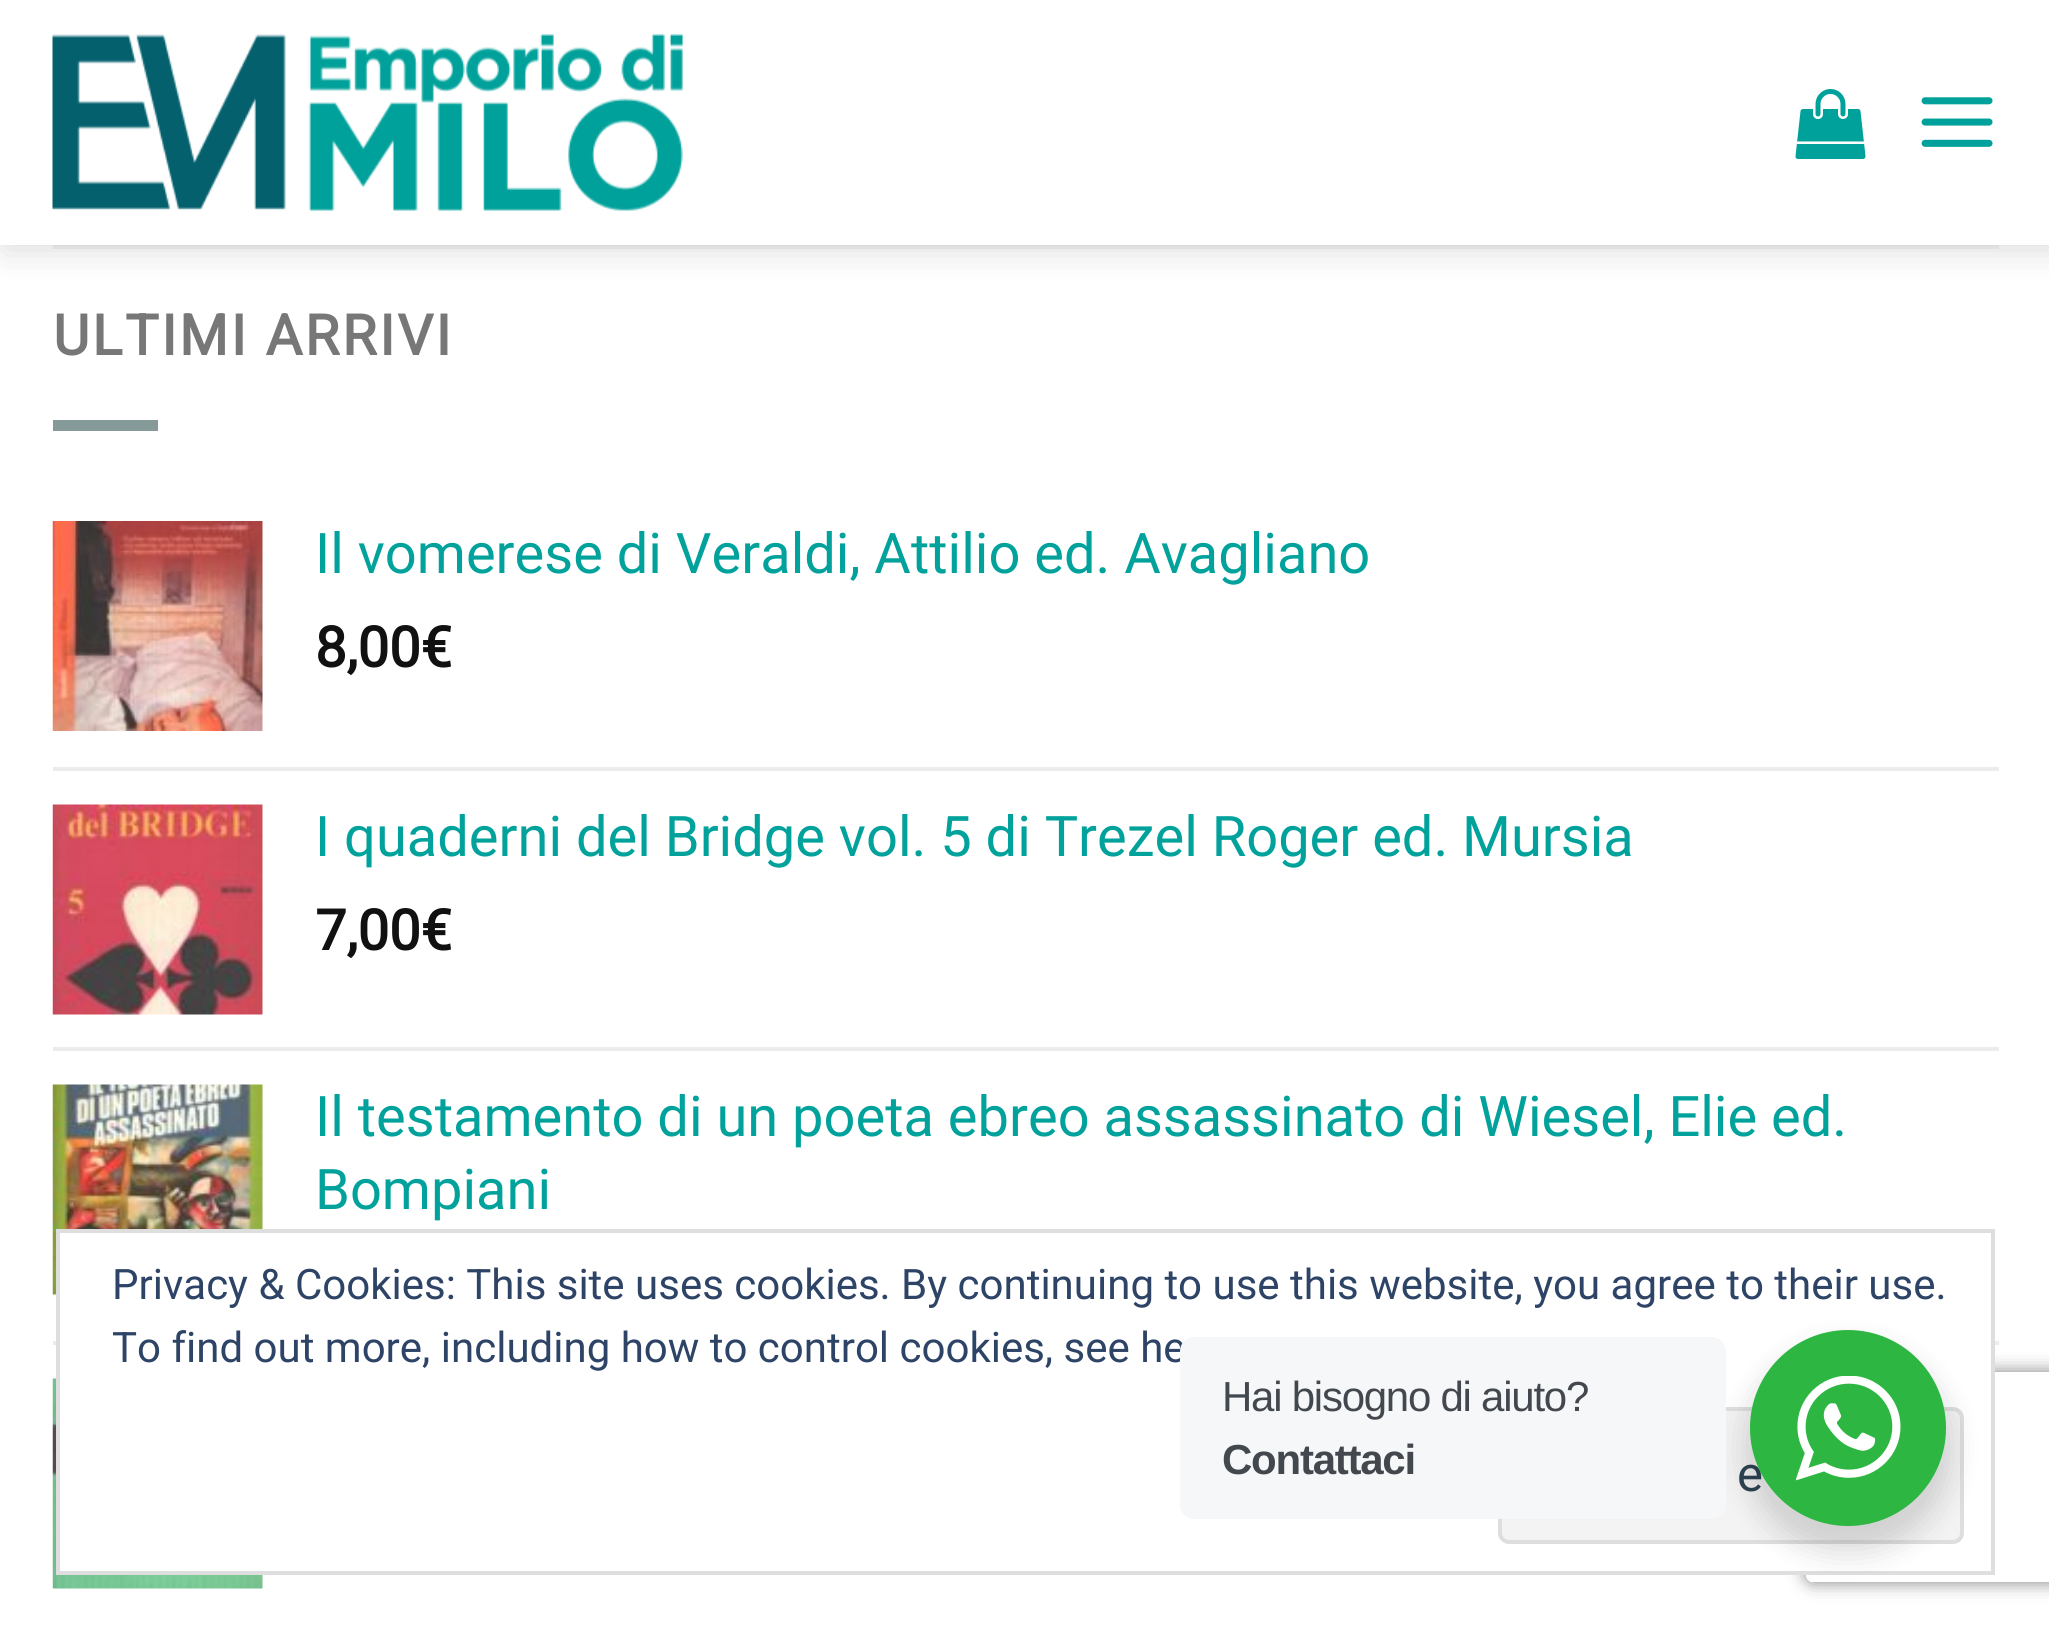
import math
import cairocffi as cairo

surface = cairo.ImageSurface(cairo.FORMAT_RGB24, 2049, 1631)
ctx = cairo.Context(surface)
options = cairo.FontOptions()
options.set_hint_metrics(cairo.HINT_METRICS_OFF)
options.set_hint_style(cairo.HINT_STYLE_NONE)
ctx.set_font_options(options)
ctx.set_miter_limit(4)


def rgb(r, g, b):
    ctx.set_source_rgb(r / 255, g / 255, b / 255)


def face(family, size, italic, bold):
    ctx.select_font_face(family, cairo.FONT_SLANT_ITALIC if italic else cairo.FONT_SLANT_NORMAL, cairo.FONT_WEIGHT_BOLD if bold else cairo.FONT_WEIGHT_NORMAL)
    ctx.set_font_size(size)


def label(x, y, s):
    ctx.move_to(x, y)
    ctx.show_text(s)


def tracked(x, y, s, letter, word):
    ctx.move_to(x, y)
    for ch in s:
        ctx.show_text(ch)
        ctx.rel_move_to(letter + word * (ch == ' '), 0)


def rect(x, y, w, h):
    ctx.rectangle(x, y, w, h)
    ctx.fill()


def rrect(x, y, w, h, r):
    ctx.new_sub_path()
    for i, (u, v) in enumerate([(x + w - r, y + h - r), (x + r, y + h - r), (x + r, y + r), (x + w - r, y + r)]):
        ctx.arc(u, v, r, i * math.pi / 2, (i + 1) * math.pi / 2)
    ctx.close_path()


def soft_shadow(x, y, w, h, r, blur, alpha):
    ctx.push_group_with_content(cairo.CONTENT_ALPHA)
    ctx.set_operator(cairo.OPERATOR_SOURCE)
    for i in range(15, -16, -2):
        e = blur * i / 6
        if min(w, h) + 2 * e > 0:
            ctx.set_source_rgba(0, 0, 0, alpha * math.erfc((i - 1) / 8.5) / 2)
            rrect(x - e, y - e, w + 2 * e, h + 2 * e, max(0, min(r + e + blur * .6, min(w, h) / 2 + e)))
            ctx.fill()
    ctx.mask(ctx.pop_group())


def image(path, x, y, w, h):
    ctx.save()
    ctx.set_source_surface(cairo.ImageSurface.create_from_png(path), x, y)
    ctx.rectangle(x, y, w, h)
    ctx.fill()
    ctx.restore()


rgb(255, 255, 255)
ctx.paint()
rgb(0, 0, 0)
soft_shadow(4, 4, 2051, 245, 0, 17.5, 0.15)
rgb(255, 255, 255)
rect(0, 0, 2049, 245)
image('image0.png', 52, 33, 631, 178)
image('image1.png', 1795, 89, 71, 70)
image('image2.png', 1921, 97, 72, 50)
ctx.set_source_rgba(0.467, 0.467, 0.467, 0.1)
rect(53, 245, 1946, 4)
face('Roboto', 56, 0, 1)
rgb(119, 119, 119)
tracked(53, 355, 'ULTIMI ARRIVI', 2.75, 0)
rgb(134, 154, 153)
rect(53, 420, 105, 11)
image('image3.png', 52, 521, 211, 210)
face('Roboto', 56, 0, 0)
rgb(1, 162, 155)
label(315, 573, 'Il vomerese di Veraldi, Attilio ed. Avagliano')
face('Roboto', 56, 0, 1)
rgb(17, 17, 17)
label(315, 667, '8,00€')
rgb(236, 236, 236)
rect(53, 767, 1946, 4)
image('image4.png', 52, 804, 211, 211)
face('Roboto', 56, 0, 0)
rgb(1, 162, 155)
label(315, 856, 'I quaderni del Bridge vol. 5 di Trezel Roger ed. Mursia')
face('Roboto', 56, 0, 1)
rgb(17, 17, 17)
label(315, 950, '7,00€')
rgb(236, 236, 236)
rect(53, 1047, 1946, 4)
image('image5.png', 52, 1084, 211, 211)
face('Roboto', 56, 0, 0)
rgb(1, 162, 155)
label(315, 1136, 'Il testamento di un poeta ebreo assassinato di Wiesel, Elie ed.')
label(315, 1209, 'Bompiani')
rgb(236, 236, 236)
rect(53, 1341, 1946, 4)
image('image6.png', 52, 1378, 211, 211)
ctx.save()
ctx.set_fill_rule(cairo.FILL_RULE_EVEN_ODD)
ctx.new_path()
ctx.move_to(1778, 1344)
ctx.line_to(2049, 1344)
ctx.line_to(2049, 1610)
ctx.line_to(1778, 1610)
ctx.close_path()
ctx.move_to(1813, 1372)
ctx.line_to(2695, 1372)
ctx.curve_to(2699, 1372, 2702, 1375, 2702, 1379)
ctx.line_to(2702, 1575)
ctx.curve_to(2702, 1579, 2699, 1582, 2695, 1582)
ctx.line_to(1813, 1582)
ctx.curve_to(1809, 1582, 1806, 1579, 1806, 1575)
ctx.line_to(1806, 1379)
ctx.curve_to(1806, 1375, 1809, 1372, 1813, 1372)
ctx.close_path()
ctx.clip()
rgb(128, 128, 128)
soft_shadow(1806, 1372, 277, 210, 7, 9, 1)
ctx.restore()
rgb(255, 255, 255)
ctx.rectangle(58, 1231, 1935, 342)
ctx.fill_preserve()
rgb(222, 222, 222)
ctx.set_line_width(4)
ctx.stroke()
face('Roboto', 42, 0, 0)
rgb(46, 68, 103)
label(112, 1299, 'Privacy & Cookies: This site uses cookies. By continuing to use this website, you agree to their use.')
label(112, 1362, 'To find out more, including how to control cookies, see he')
rgb(243, 243, 243)
rrect(1500, 1409, 462, 133, 9)
ctx.fill_preserve()
rgb(222, 222, 222)
ctx.stroke()
face('Roboto', 49, 0, 0)
rgb(46, 68, 83)
tracked(1737, 1491, 'e', 1, 0)
rgb(0, 0, 0)
soft_shadow(1743, 1344, 210, 210, 105, 14, 0.14)
rgb(245, 247, 249)
rrect(1180, 1337, 546, 182, 14)
ctx.fill()
face('Liberation Sans', 42, 0, 0)
rgb(67, 71, 78)
tracked(1222, 1411, 'Hai bisogno di aiuto?', -1.25, 0)
face('Liberation Sans', 42, 0, 1)
tracked(1222, 1474, 'Contattaci', -1.25, 0)
rgb(45, 183, 66)
ctx.new_path()
ctx.arc(1848, 1428, 98, 0, 2 * math.pi)
ctx.fill()
image('image7.png', 1796, 1376, 105, 105)
surface.write_to_png('render.png')
